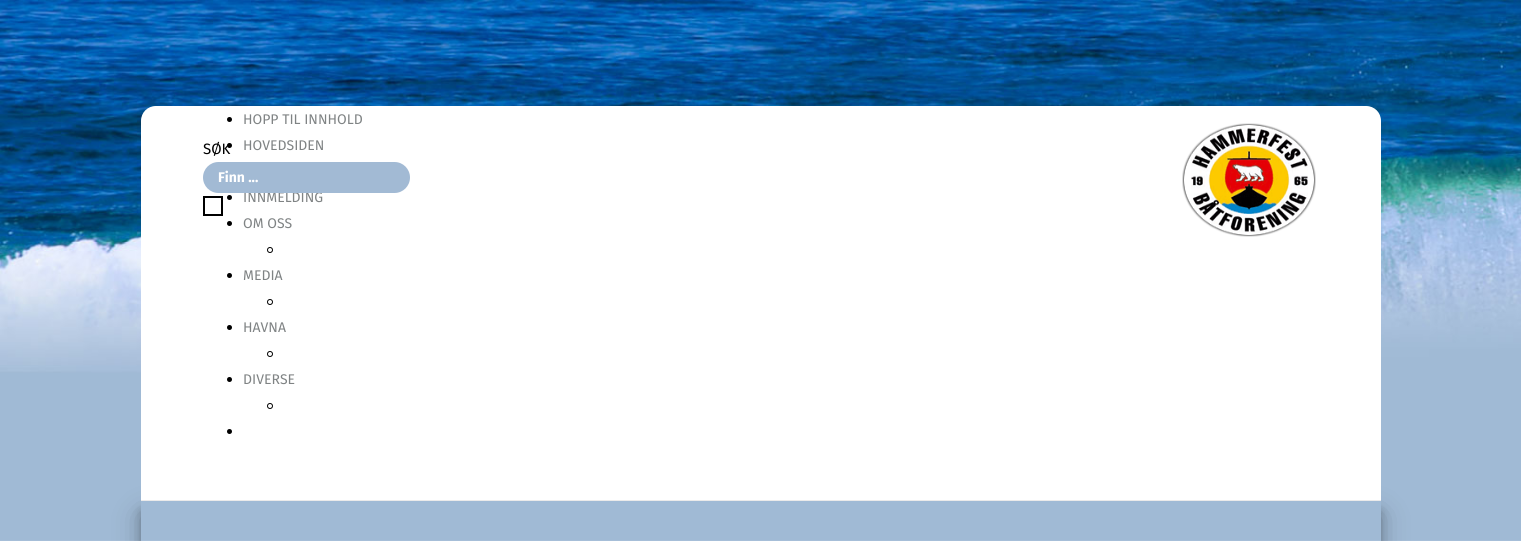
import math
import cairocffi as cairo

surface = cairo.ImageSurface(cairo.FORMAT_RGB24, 1521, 541)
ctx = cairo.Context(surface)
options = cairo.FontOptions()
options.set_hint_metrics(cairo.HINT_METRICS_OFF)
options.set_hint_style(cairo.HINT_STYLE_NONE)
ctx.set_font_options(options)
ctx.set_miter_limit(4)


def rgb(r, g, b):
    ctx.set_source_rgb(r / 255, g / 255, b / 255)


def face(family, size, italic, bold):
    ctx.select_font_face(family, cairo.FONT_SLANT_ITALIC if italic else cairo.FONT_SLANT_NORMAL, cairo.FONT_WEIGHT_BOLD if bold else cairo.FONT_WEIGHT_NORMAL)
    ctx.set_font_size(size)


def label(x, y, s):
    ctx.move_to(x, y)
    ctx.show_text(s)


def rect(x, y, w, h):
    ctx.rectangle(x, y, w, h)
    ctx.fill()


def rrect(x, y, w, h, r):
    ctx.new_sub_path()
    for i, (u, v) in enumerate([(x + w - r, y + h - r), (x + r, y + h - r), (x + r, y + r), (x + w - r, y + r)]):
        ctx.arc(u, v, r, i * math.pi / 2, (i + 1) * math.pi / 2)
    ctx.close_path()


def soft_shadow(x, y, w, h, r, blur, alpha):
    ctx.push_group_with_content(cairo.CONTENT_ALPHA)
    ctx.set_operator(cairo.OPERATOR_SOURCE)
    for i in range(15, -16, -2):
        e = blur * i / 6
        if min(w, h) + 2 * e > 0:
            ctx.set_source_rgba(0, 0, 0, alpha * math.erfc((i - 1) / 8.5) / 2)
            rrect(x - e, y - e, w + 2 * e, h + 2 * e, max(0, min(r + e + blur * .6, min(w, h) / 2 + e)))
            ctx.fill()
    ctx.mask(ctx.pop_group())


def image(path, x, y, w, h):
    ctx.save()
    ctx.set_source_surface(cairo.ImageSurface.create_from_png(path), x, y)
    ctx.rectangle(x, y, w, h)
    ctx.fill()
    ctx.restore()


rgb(255, 255, 255)
ctx.paint()
image('image0.png', 0, 0, 1521, 541)
ctx.save()
ctx.set_fill_rule(cairo.FILL_RULE_EVEN_ODD)
ctx.new_path()
ctx.move_to(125, 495)
ctx.line_to(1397, 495)
ctx.line_to(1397, 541)
ctx.line_to(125, 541)
ctx.close_path()
ctx.move_to(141, 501)
ctx.line_to(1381, 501)
ctx.line_to(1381, 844)
ctx.line_to(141, 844)
ctx.close_path()
ctx.clip()
rgb(0, 0, 0)
soft_shadow(141, 511, 1240, 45, 0, 5, 0.22)
ctx.restore()
ctx.save()
ctx.set_fill_rule(cairo.FILL_RULE_EVEN_ODD)
ctx.new_path()
ctx.move_to(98, 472)
ctx.line_to(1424, 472)
ctx.line_to(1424, 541)
ctx.line_to(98, 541)
ctx.close_path()
ctx.move_to(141, 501)
ctx.line_to(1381, 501)
ctx.line_to(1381, 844)
ctx.line_to(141, 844)
ctx.close_path()
ctx.clip()
rgb(0, 0, 0)
soft_shadow(141, 515, 1240, 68, 0, 14, 0.25)
ctx.restore()
rgb(255, 255, 255)
ctx.new_path()
ctx.move_to(156, 106)
ctx.line_to(1366, 106)
ctx.curve_to(1374.5, 106, 1381, 112.5, 1381, 121)
ctx.line_to(1381, 501)
ctx.line_to(141, 501)
ctx.line_to(141, 121)
ctx.curve_to(141, 112.5, 147.5, 106, 156, 106)
ctx.close_path()
ctx.fill()
rgb(235, 234, 234)
rect(141, 500, 1240, 1)
rgb(0, 0, 0)
ctx.arc(229.5, 145.5, 2.5, 0, 2 * math.pi)
ctx.fill()
face('Fira Sans', 15, 0, 0)
label(203, 154, 'SØK')
face('Fira Sans', 14, 0, 0)
rgb(127, 131, 132)
label(243, 202, 'INNMELDING')
rgb(162, 186, 212)
rrect(203, 162, 207, 31, 15.5)
ctx.fill()
face('Fira Sans', 14, 0, 1)
rgb(255, 255, 255)
label(218, 182, 'Finn ...')
ctx.rectangle(204, 197, 18, 18)
rgb(0, 0, 0)
ctx.stroke()
ctx.arc(229.5, 119.5, 2.5, 0, 2 * math.pi)
ctx.fill()
face('Fira Sans', 14, 0, 0)
rgb(127, 131, 132)
label(243, 124, 'HOPP TIL INNHOLD')
label(243, 150, 'HOVEDSIDEN')
rgb(0, 0, 0)
ctx.new_path()
ctx.arc(229.5, 197.5, 2.5, 0, 2 * math.pi)
ctx.fill()
ctx.arc(229.5, 223.5, 2.5, 0, 2 * math.pi)
ctx.fill()
rgb(127, 131, 132)
label(243, 228, 'OM OSS')
ctx.new_path()
ctx.arc(270, 250, 2.5, 0, 2 * math.pi)
rgb(0, 0, 0)
ctx.set_line_width(1)
ctx.stroke()
ctx.arc(229.5, 275.5, 2.5, 0, 2 * math.pi)
ctx.fill()
rgb(127, 131, 132)
label(243, 280, 'MEDIA')
ctx.new_path()
ctx.arc(270, 302, 2.5, 0, 2 * math.pi)
rgb(0, 0, 0)
ctx.stroke()
ctx.arc(229.5, 327.5, 2.5, 0, 2 * math.pi)
ctx.fill()
rgb(127, 131, 132)
label(243, 332, 'HAVNA')
ctx.new_path()
ctx.arc(270, 354, 2.5, 0, 2 * math.pi)
rgb(0, 0, 0)
ctx.stroke()
ctx.arc(229.5, 379.5, 2.5, 0, 2 * math.pi)
ctx.fill()
rgb(127, 131, 132)
label(243, 384, 'DIVERSE')
ctx.new_path()
ctx.arc(270, 406, 2.5, 0, 2 * math.pi)
rgb(0, 0, 0)
ctx.stroke()
ctx.arc(229.5, 431.5, 2.5, 0, 2 * math.pi)
ctx.fill()
image('image1.png', 1182, 123, 134, 114)
surface.write_to_png('render.png')
